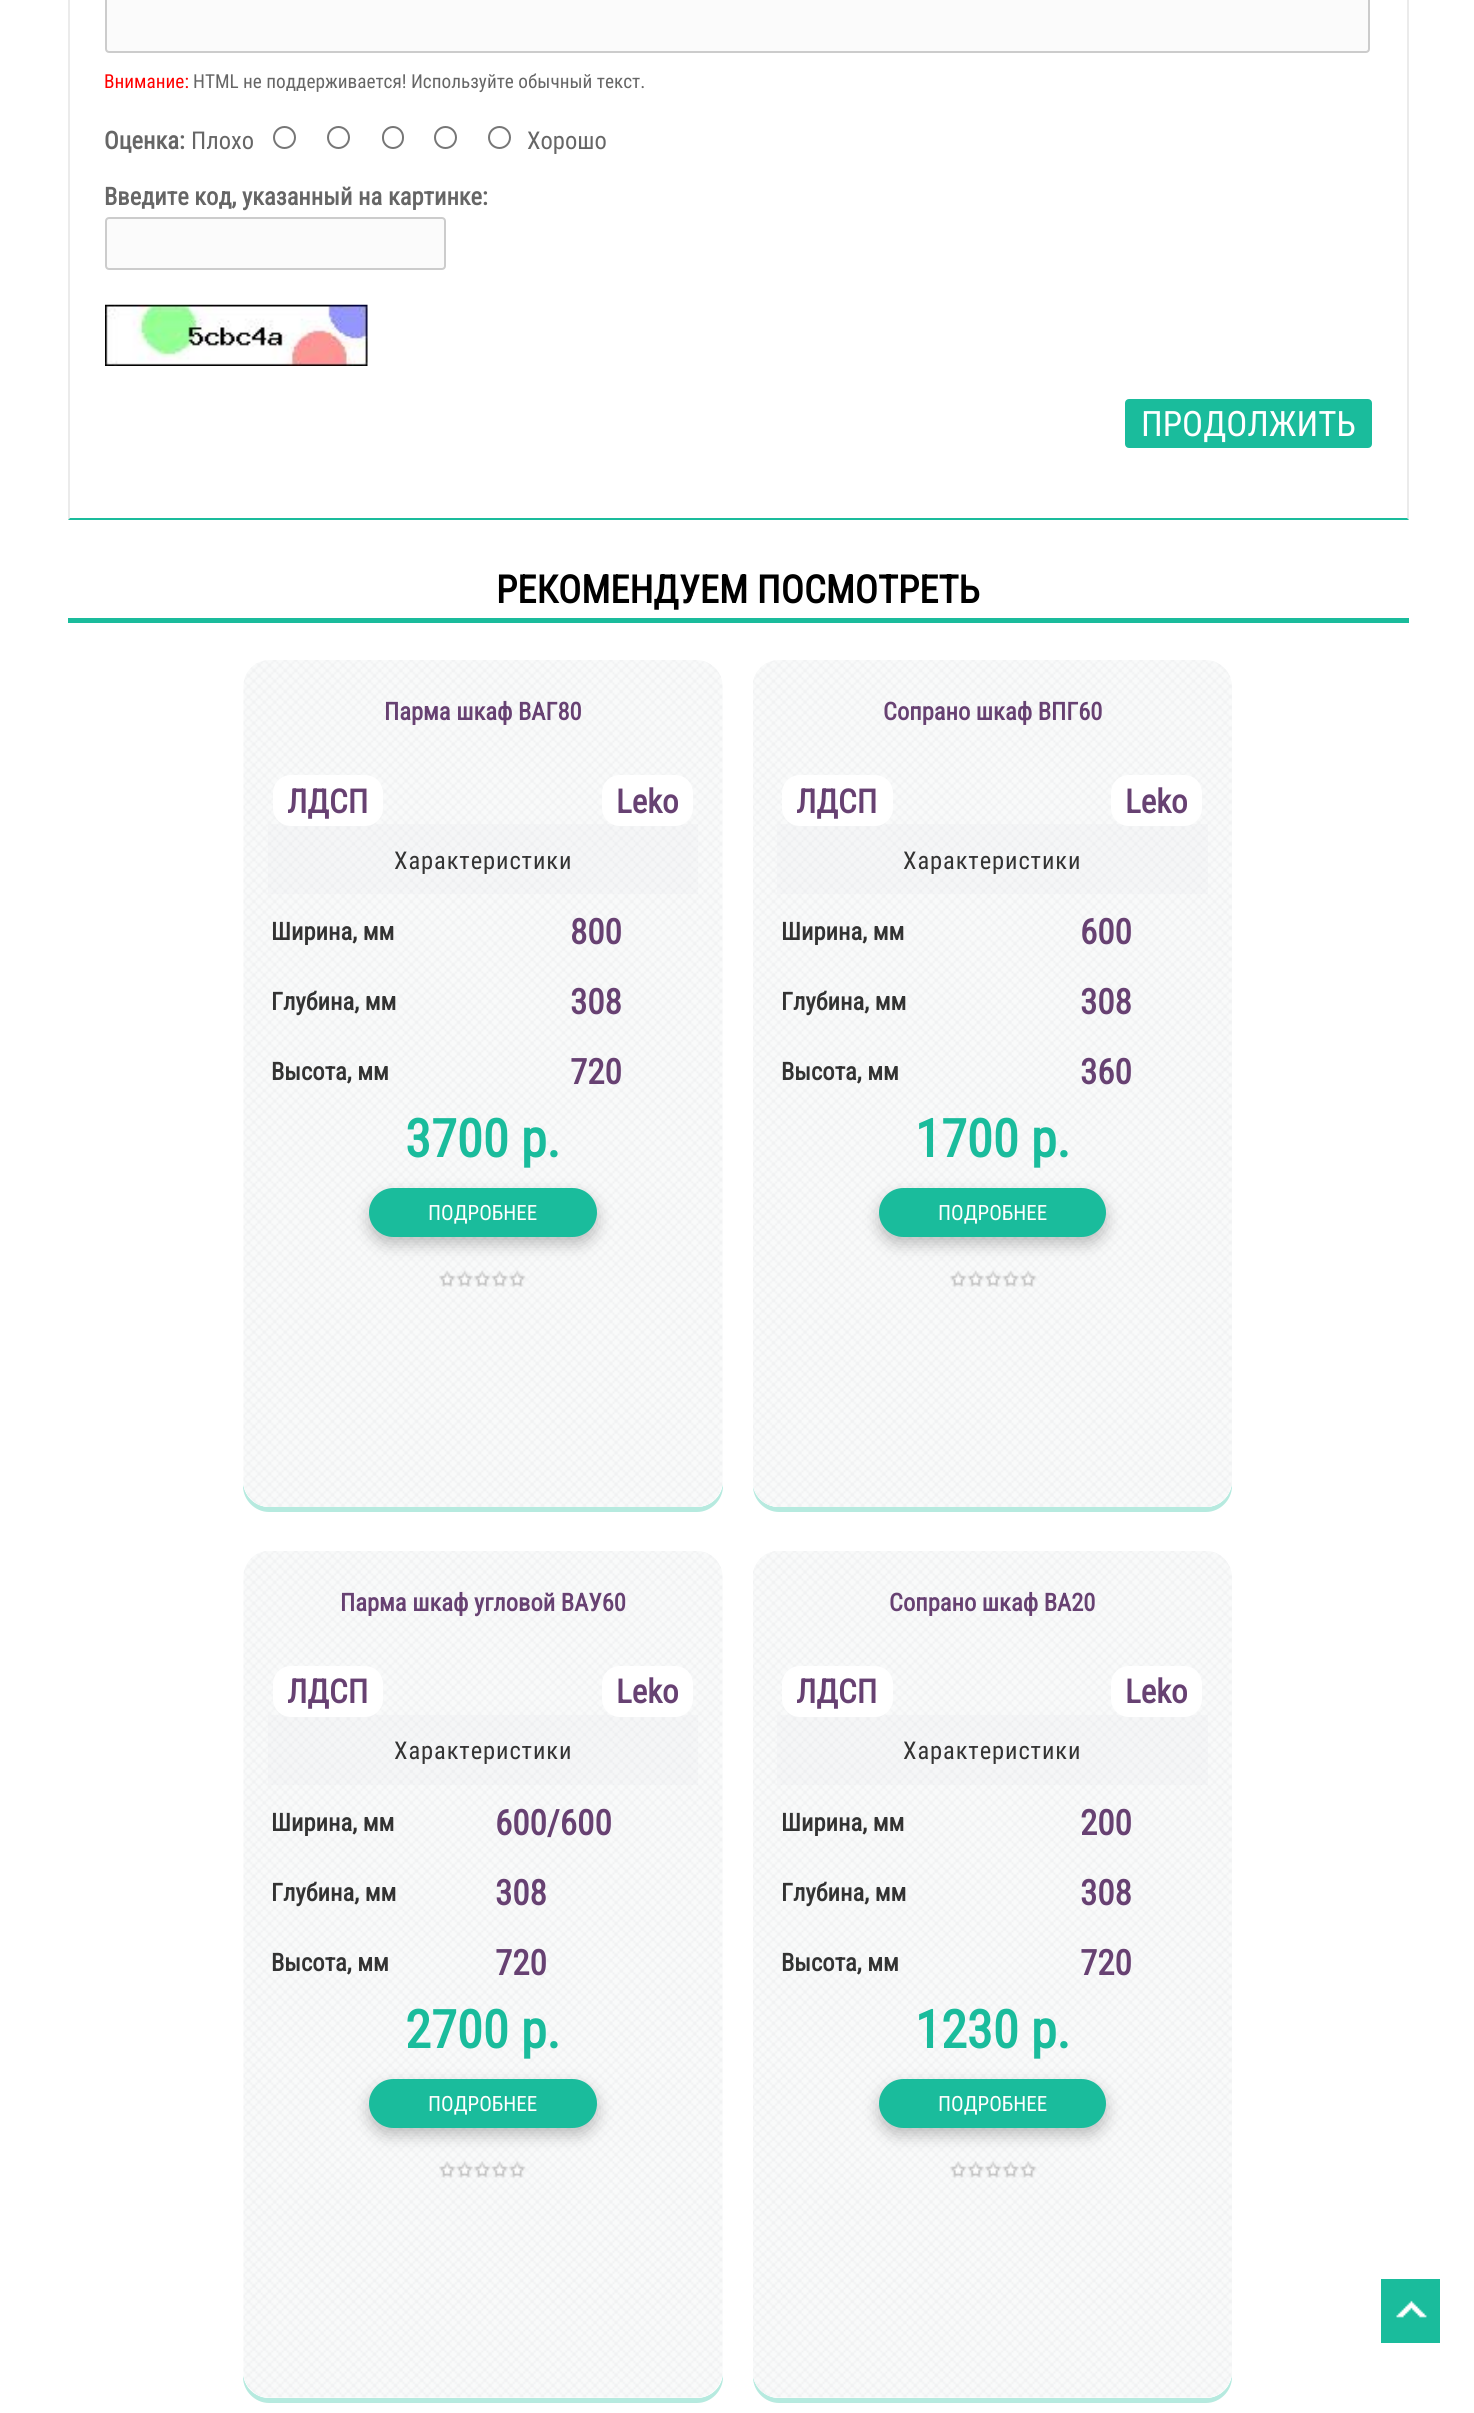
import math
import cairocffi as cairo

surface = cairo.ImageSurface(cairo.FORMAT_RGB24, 1474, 2413)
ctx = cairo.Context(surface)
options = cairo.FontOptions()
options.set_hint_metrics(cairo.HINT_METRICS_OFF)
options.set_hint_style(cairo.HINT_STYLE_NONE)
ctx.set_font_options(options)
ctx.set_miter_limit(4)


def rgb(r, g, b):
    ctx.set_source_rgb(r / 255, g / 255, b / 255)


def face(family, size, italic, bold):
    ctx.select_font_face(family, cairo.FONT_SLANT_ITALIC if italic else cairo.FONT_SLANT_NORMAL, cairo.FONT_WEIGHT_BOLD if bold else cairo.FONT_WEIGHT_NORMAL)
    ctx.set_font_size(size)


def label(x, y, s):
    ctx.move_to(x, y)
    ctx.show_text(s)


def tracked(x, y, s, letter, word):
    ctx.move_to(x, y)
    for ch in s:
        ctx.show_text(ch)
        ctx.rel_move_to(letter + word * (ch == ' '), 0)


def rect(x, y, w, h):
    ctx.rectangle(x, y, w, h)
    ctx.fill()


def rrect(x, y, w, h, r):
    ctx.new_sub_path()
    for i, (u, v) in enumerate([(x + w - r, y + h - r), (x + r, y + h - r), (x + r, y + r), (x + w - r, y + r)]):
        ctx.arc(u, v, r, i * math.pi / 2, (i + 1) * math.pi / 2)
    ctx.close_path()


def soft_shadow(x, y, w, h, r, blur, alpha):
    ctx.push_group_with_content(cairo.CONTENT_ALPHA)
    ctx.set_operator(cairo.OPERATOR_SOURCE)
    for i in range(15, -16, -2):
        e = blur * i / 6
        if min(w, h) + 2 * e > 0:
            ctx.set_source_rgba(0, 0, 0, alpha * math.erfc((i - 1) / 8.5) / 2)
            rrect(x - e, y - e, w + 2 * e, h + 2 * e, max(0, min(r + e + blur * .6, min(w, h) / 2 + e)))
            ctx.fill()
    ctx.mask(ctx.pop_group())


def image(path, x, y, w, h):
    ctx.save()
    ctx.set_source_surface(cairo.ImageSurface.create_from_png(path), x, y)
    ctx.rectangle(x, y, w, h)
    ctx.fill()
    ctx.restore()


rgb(255, 255, 255)
ctx.paint()
rgb(235, 235, 235)
ctx.new_path()
ctx.move_to(1409, -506)
ctx.line_to(1409, 520)
ctx.line_to(1407, 518)
ctx.line_to(1407, -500)
ctx.close_path()
ctx.fill()
rgb(26, 188, 156)
ctx.new_path()
ctx.move_to(1409, 520)
ctx.line_to(68, 520)
ctx.line_to(70, 518)
ctx.line_to(1407, 518)
ctx.close_path()
ctx.fill()
ctx.set_source_rgba(0, 0, 0, 0.08)
ctx.new_path()
ctx.move_to(68, 520)
ctx.line_to(68, -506)
ctx.line_to(70, -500)
ctx.line_to(70, 518)
ctx.close_path()
ctx.fill()
rgb(251, 251, 251)
rrect(106, -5, 1263, 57, 3)
ctx.fill_preserve()
rgb(204, 204, 204)
ctx.stroke()
face('Roboto Condensed', 19.25, 0, 0)
rgb(255, 0, 0)
label(104, 88, 'Внимание:')
rgb(102, 102, 102)
label(193, 88, 'HTML не поддерживается! Используйте обычный текст.')
face('Roboto Condensed', 24.5, 0, 1)
label(104, 149, 'Оценка:')
face('Roboto Condensed', 24.5, 0, 0)
label(191, 149, 'Плохо')
ctx.new_path()
ctx.arc(284.5, 137.5, 10.5, 0, 2 * math.pi)
rgb(118, 118, 118)
ctx.stroke()
ctx.arc(338.5, 137.5, 10.5, 0, 2 * math.pi)
ctx.stroke()
rrect(383, 127, 20, 21, 10)
ctx.stroke()
ctx.arc(445.5, 137.5, 10.5, 0, 2 * math.pi)
ctx.stroke()
ctx.arc(499.5, 137.5, 10.5, 0, 2 * math.pi)
ctx.stroke()
rgb(102, 102, 102)
label(527, 149, 'Хорошо')
face('Roboto Condensed', 24.5, 0, 1)
label(104, 205, 'Введите код, указанный на картинке:')
rgb(251, 251, 251)
rrect(106, 218, 339, 51, 3)
ctx.fill_preserve()
rgb(204, 204, 204)
ctx.stroke()
image('image0.png', 105, 304, 263, 62)
rgb(26, 188, 156)
rrect(1126, 400, 245, 47, 3)
ctx.fill_preserve()
ctx.stroke()
face('Roboto Condensed', 35, 0, 0)
rgb(255, 255, 255)
label(1141, 436, 'ПРОДОЛЖИТЬ')
rgb(26, 188, 156)
rect(68, 618, 1341, 5)
face('Roboto Condensed', 38.5, 0, 1)
rgb(0, 0, 0)
label(496, 603, 'РЕКОМЕНДУЕМ ПОСМОТРЕТЬ')
rgb(182, 234, 223)
ctx.new_path()
ctx.move_to(243, 687)
ctx.line_to(243, 1486)
ctx.curve_to(243, 1500, 255, 1512, 269, 1512)
ctx.line_to(697, 1512)
ctx.curve_to(711, 1512, 723, 1500, 723, 1486)
ctx.line_to(723, 687)
ctx.line_to(723, 1480)
ctx.curve_to(723, 1495, 711, 1507, 696, 1507)
ctx.line_to(270, 1507)
ctx.curve_to(255, 1507, 243, 1495, 243, 1480)
ctx.close_path()
ctx.fill()
rgb(255, 255, 255)
rrect(243, 660, 480, 847, 26)
ctx.fill()
image('image1.png', 243, 660, 480, 847)
face('Roboto Condensed', 24.5, 0, 1)
rgb(103, 65, 114)
label(384, 720, 'Парма шкаф ВАГ80')
ctx.set_source_rgba(0.8, 0.827, 0.863, 0.08)
rect(268, 824, 430, 70)
rgb(255, 255, 255)
rrect(273, 775, 110, 51, 18)
ctx.fill()
face('Roboto Condensed', 33, 0, 1)
rgb(103, 65, 114)
label(287, 813, 'ЛДСП')
rgb(255, 255, 255)
rrect(602, 775, 91, 51, 18)
ctx.fill()
rgb(103, 65, 114)
label(616, 813, 'Leko')
face('Roboto Condensed', 24.5, 0, 0)
rgb(51, 51, 51)
tracked(394, 869, 'Характеристики', 0.9, 0)
face('Roboto Condensed', 24.5, 0, 1)
label(271, 940, 'Ширина, мм')
face('Roboto Condensed', 35, 0, 1)
rgb(103, 65, 114)
label(570, 944, '800')
face('Roboto Condensed', 24.5, 0, 1)
rgb(51, 51, 51)
label(271, 1010, 'Глубина, мм')
face('Roboto Condensed', 35, 0, 1)
rgb(103, 65, 114)
label(570, 1014, '308')
face('Roboto Condensed', 24.5, 0, 1)
rgb(51, 51, 51)
label(271, 1080, 'Высота, мм')
face('Roboto Condensed', 35, 0, 1)
rgb(103, 65, 114)
label(570, 1084, '720')
face('Roboto Condensed', 52.5, 0, 1)
rgb(26, 188, 156)
label(405, 1157, '3700 р.')
rgb(0, 0, 0)
soft_shadow(369, 1195, 228, 49, 24.5, 8, 0.24)
rgb(26, 188, 156)
rrect(369, 1188, 228, 49, 24.5)
ctx.fill()
face('Roboto Condensed', 21, 0, 0)
rgb(255, 255, 255)
label(428, 1220, 'ПОДРОБНЕЕ')
image('image2.png', 439, 1270, 87, 17)
rgb(182, 234, 223)
ctx.new_path()
ctx.move_to(753, 1486)
ctx.curve_to(753, 1500, 765, 1512, 779, 1512)
ctx.line_to(1206, 1512)
ctx.curve_to(1220, 1512, 1232, 1500, 1232, 1486)
ctx.line_to(1232, 1480)
ctx.curve_to(1232, 1495, 1220, 1507, 1206, 1507)
ctx.line_to(779, 1507)
ctx.curve_to(766, 1507, 755, 1498, 753, 1486)
ctx.close_path()
ctx.fill()
rgb(255, 255, 255)
rrect(753, 660, 479, 847, 26)
ctx.fill()
image('image3.png', 753, 660, 479, 847)
face('Roboto Condensed', 24.5, 0, 1)
rgb(103, 65, 114)
label(883, 720, 'Сопрано шкаф ВПГ60')
ctx.set_source_rgba(0.8, 0.827, 0.863, 0.08)
rect(777, 824, 431, 70)
rgb(255, 255, 255)
rrect(782, 775, 111, 51, 18)
ctx.fill()
face('Roboto Condensed', 33, 0, 1)
rgb(103, 65, 114)
label(796, 813, 'ЛДСП')
rgb(255, 255, 255)
rrect(1111, 775, 91, 51, 18)
ctx.fill()
rgb(103, 65, 114)
label(1125, 813, 'Leko')
face('Roboto Condensed', 24.5, 0, 0)
rgb(51, 51, 51)
tracked(903, 869, 'Характеристики', 0.9, 0)
face('Roboto Condensed', 24.5, 0, 1)
label(781, 940, 'Ширина, мм')
face('Roboto Condensed', 35, 0, 1)
rgb(103, 65, 114)
label(1080, 944, '600')
face('Roboto Condensed', 24.5, 0, 1)
rgb(51, 51, 51)
label(781, 1010, 'Глубина, мм')
face('Roboto Condensed', 35, 0, 1)
rgb(103, 65, 114)
label(1080, 1014, '308')
face('Roboto Condensed', 24.5, 0, 1)
rgb(51, 51, 51)
label(781, 1080, 'Высота, мм')
face('Roboto Condensed', 35, 0, 1)
rgb(103, 65, 114)
label(1080, 1084, '360')
face('Roboto Condensed', 52.5, 0, 1)
rgb(26, 188, 156)
label(915, 1157, '1700 р.')
rgb(0, 0, 0)
soft_shadow(879, 1195, 227, 49, 24.5, 8, 0.24)
rgb(26, 188, 156)
rrect(879, 1188, 227, 49, 24.5)
ctx.fill()
face('Roboto Condensed', 21, 0, 0)
rgb(255, 255, 255)
label(938, 1220, 'ПОДРОБНЕЕ')
image('image4.png', 950, 1270, 87, 17)
rgb(182, 234, 223)
ctx.new_path()
ctx.move_to(243, 1578)
ctx.line_to(243, 2377)
ctx.curve_to(243, 2391, 255, 2403, 269, 2403)
ctx.line_to(697, 2403)
ctx.curve_to(711, 2403, 723, 2391, 723, 2377)
ctx.line_to(723, 1578)
ctx.line_to(723, 2371)
ctx.curve_to(723, 2386, 711, 2398, 696, 2398)
ctx.line_to(270, 2398)
ctx.curve_to(255, 2398, 243, 2386, 243, 2371)
ctx.close_path()
ctx.fill()
rgb(255, 255, 255)
rrect(243, 1551, 480, 847, 26)
ctx.fill()
image('image5.png', 243, 1551, 480, 847)
face('Roboto Condensed', 24.5, 0, 1)
rgb(103, 65, 114)
label(340, 1611, 'Парма шкаф угловой ВАУ60')
ctx.set_source_rgba(0.8, 0.827, 0.863, 0.08)
rect(268, 1715, 430, 70)
rgb(255, 255, 255)
rrect(273, 1666, 110, 51, 18)
ctx.fill()
face('Roboto Condensed', 33, 0, 1)
rgb(103, 65, 114)
label(287, 1703, 'ЛДСП')
rgb(255, 255, 255)
rrect(602, 1666, 91, 51, 18)
ctx.fill()
rgb(103, 65, 114)
label(616, 1703, 'Leko')
face('Roboto Condensed', 24.5, 0, 0)
rgb(51, 51, 51)
tracked(394, 1759, 'Характеристики', 0.9, 0)
face('Roboto Condensed', 24.5, 0, 1)
label(271, 1831, 'Ширина, мм')
face('Roboto Condensed', 35, 0, 1)
rgb(103, 65, 114)
label(495, 1835, '600/600')
face('Roboto Condensed', 24.5, 0, 1)
rgb(51, 51, 51)
label(271, 1901, 'Глубина, мм')
face('Roboto Condensed', 35, 0, 1)
rgb(103, 65, 114)
label(495, 1905, '308')
face('Roboto Condensed', 24.5, 0, 1)
rgb(51, 51, 51)
label(271, 1971, 'Высота, мм')
face('Roboto Condensed', 35, 0, 1)
rgb(103, 65, 114)
label(495, 1975, '720')
face('Roboto Condensed', 52.5, 0, 1)
rgb(26, 188, 156)
label(405, 2048, '2700 р.')
rgb(0, 0, 0)
soft_shadow(369, 2086, 228, 49, 24.5, 8, 0.24)
rgb(26, 188, 156)
rrect(369, 2079, 228, 49, 24.5)
ctx.fill()
face('Roboto Condensed', 21, 0, 0)
rgb(255, 255, 255)
label(428, 2111, 'ПОДРОБНЕЕ')
image('image6.png', 439, 2161, 87, 17)
rgb(182, 234, 223)
ctx.new_path()
ctx.move_to(753, 2376)
ctx.line_to(753, 2377)
ctx.curve_to(753, 2391, 765, 2403, 779, 2403)
ctx.line_to(1206, 2403)
ctx.curve_to(1220, 2403, 1232, 2391, 1232, 2377)
ctx.line_to(1232, 2371)
ctx.curve_to(1232, 2386, 1220, 2398, 1206, 2398)
ctx.line_to(779, 2398)
ctx.curve_to(766, 2398, 755, 2388, 753, 2376)
ctx.close_path()
ctx.fill()
rgb(255, 255, 255)
rrect(753, 1551, 479, 847, 26)
ctx.fill()
image('image7.png', 753, 1551, 479, 847)
face('Roboto Condensed', 24.5, 0, 1)
rgb(103, 65, 114)
label(889, 1611, 'Сопрано шкаф ВА20')
ctx.set_source_rgba(0.8, 0.827, 0.863, 0.08)
rect(777, 1715, 431, 70)
rgb(255, 255, 255)
rrect(782, 1666, 111, 51, 18)
ctx.fill()
face('Roboto Condensed', 33, 0, 1)
rgb(103, 65, 114)
label(796, 1703, 'ЛДСП')
rgb(255, 255, 255)
rrect(1111, 1666, 91, 51, 18)
ctx.fill()
rgb(103, 65, 114)
label(1125, 1703, 'Leko')
face('Roboto Condensed', 24.5, 0, 0)
rgb(51, 51, 51)
tracked(903, 1759, 'Характеристики', 0.9, 0)
face('Roboto Condensed', 24.5, 0, 1)
label(781, 1831, 'Ширина, мм')
face('Roboto Condensed', 35, 0, 1)
rgb(103, 65, 114)
label(1080, 1835, '200')
face('Roboto Condensed', 24.5, 0, 1)
rgb(51, 51, 51)
label(781, 1901, 'Глубина, мм')
face('Roboto Condensed', 35, 0, 1)
rgb(103, 65, 114)
label(1080, 1905, '308')
face('Roboto Condensed', 24.5, 0, 1)
rgb(51, 51, 51)
label(781, 1971, 'Высота, мм')
face('Roboto Condensed', 35, 0, 1)
rgb(103, 65, 114)
label(1080, 1975, '720')
face('Roboto Condensed', 52.5, 0, 1)
rgb(26, 188, 156)
label(915, 2048, '1230 р.')
rgb(0, 0, 0)
soft_shadow(879, 2086, 227, 49, 24.5, 8, 0.24)
rgb(26, 188, 156)
rrect(879, 2079, 227, 49, 24.5)
ctx.fill()
face('Roboto Condensed', 21, 0, 0)
rgb(255, 255, 255)
label(938, 2111, 'ПОДРОБНЕЕ')
image('image8.png', 950, 2161, 87, 17)
rgb(26, 188, 156)
rect(1381, 2279, 59, 64)
image('image9.png', 1396, 2300, 31, 18)
surface.write_to_png('render.png')
